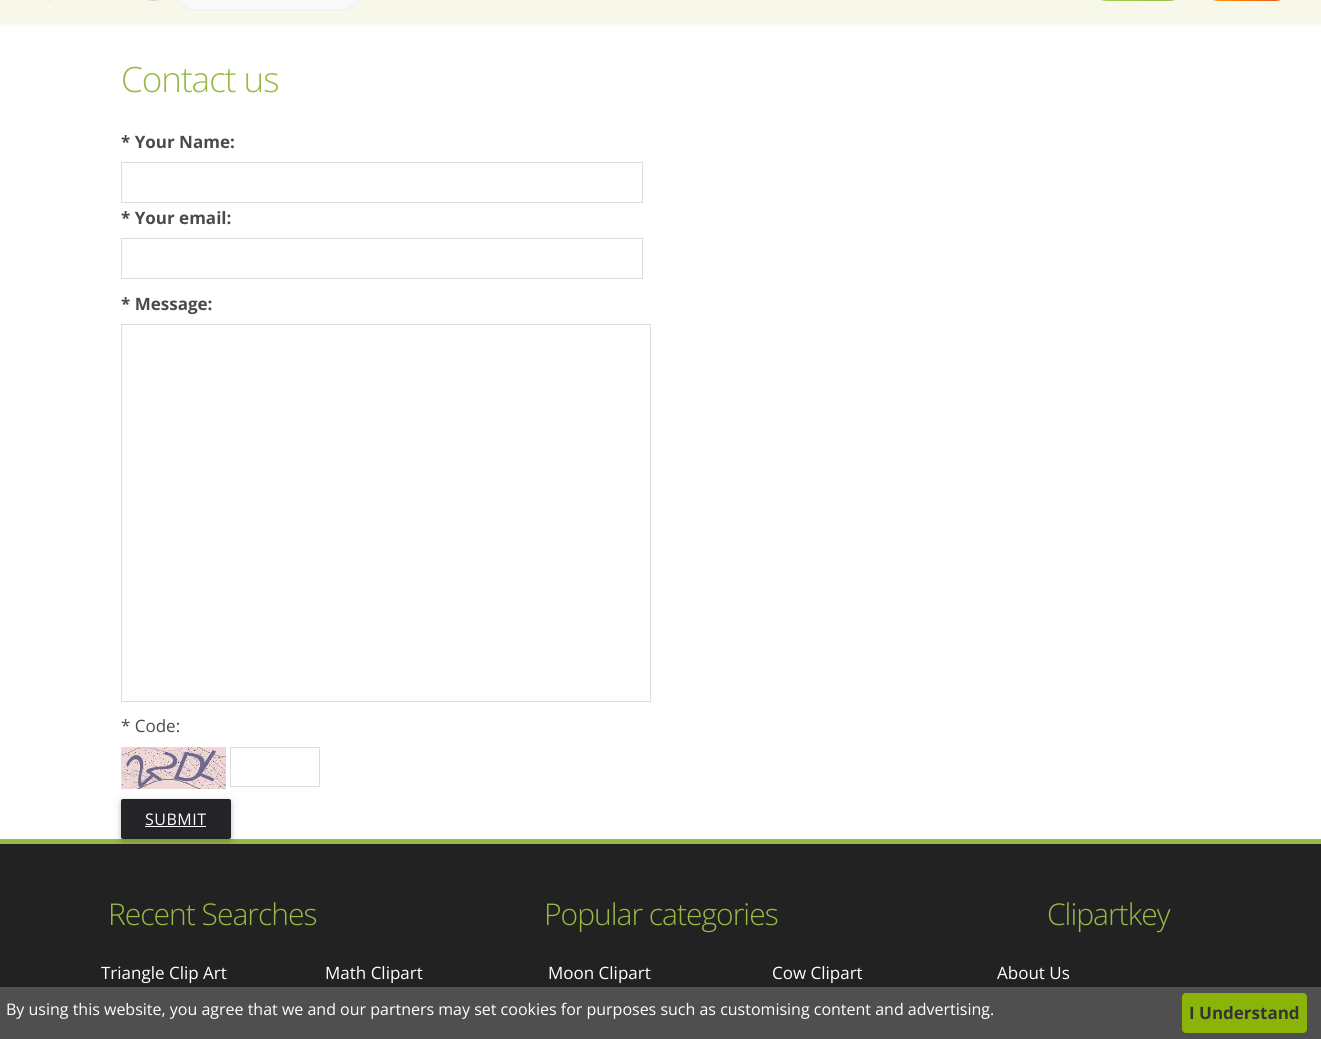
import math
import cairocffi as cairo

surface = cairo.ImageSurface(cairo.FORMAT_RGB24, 1321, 1039)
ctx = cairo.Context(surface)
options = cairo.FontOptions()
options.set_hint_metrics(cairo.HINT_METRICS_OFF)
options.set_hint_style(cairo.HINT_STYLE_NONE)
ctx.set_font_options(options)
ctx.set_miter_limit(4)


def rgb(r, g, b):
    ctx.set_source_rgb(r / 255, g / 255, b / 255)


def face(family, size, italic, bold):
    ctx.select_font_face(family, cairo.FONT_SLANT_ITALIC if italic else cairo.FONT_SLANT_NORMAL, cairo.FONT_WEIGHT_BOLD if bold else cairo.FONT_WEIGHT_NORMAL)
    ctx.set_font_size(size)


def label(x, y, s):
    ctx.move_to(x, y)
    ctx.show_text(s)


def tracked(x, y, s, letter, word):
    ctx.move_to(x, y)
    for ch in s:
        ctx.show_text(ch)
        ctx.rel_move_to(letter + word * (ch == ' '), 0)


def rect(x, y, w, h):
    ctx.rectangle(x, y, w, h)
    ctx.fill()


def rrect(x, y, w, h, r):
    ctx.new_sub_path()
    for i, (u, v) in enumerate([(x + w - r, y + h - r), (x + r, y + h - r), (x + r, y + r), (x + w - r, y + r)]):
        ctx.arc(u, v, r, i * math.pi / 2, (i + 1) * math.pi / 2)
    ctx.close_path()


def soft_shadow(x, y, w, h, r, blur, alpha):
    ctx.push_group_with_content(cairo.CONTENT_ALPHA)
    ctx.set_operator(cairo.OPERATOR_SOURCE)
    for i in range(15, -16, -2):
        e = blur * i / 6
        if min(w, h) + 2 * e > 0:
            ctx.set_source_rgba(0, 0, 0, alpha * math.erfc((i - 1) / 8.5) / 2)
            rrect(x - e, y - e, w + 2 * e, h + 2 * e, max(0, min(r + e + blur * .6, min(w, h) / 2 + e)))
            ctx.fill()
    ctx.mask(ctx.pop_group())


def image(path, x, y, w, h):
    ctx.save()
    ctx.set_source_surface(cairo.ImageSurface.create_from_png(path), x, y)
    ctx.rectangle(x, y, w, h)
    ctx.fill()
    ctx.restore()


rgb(255, 255, 255)
ctx.paint()
rgb(247, 248, 233)
rect(0, 0, 1321, 24)
rgb(250, 250, 250)
rect(0, 24, 1321, 2)
image('image0.png', 48, 0, 111, 1)
rgb(249, 249, 249)
rrect(172, -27, 192, 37, 25)
ctx.fill_preserve()
rgb(242, 242, 242)
ctx.stroke()
gradient = cairo.LinearGradient(1100, -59, 1176, 16)
gradient.add_color_stop_rgba(0, 0.682, 0.847, 0.322, 1)
gradient.add_color_stop_rgba(1, 0.592, 0.729, 0.271, 1)
ctx.set_source(gradient)
rrect(1085, -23, 106, 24, 22.5)
ctx.fill()
gradient = cairo.LinearGradient(1211, -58, 1283, 15)
gradient.add_color_stop_rgba(0, 1, 0.824, 0, 1)
gradient.add_color_stop_rgba(1, 0.937, 0.271, 0.094, 1)
ctx.set_source(gradient)
rrect(1197, -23, 100, 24, 22.5)
ctx.fill()
face('Open Sans Light', 35, 0, 0)
rgb(151, 186, 69)
tracked(121, 92, 'Contact us', -1, 0)
face('Open Sans', 17, 0, 1)
rgb(74, 74, 74)
label(121, 148, '* Your Name:')
ctx.rectangle(121.5, 162.5, 521, 40)
rgb(221, 221, 221)
ctx.set_line_width(1)
ctx.stroke()
rgb(74, 74, 74)
label(121, 224, '* Your email:')
ctx.rectangle(121.5, 238.5, 521, 40)
rgb(221, 221, 221)
ctx.stroke()
rgb(74, 74, 74)
label(121, 310, '* Message:')
ctx.rectangle(121.5, 324.5, 529, 377)
rgb(221, 221, 221)
ctx.stroke()
face('Open Sans', 17, 0, 0)
rgb(74, 74, 74)
label(121, 732, '* Code:')
image('image1.png', 121, 747, 105, 42)
ctx.rectangle(230.5, 747.5, 89, 39)
rgb(221, 221, 221)
ctx.stroke()
rgb(34, 34, 34)
rect(0, 844, 1321, 143)
rgb(151, 186, 69)
rect(0, 839, 1321, 5)
rgb(0, 0, 0)
soft_shadow(121, 801, 110, 40, 2, 5, 0.12)
soft_shadow(121, 801, 110, 40, 2, 2.5, 0.16)
rgb(35, 35, 40)
rrect(121, 799, 110, 40, 2)
ctx.fill()
face('Open Sans', 16, 0, 0)
rgb(255, 255, 255)
tracked(145, 825, 'SUBMIT', 0.5, 0)
rect(145, 826, 61, 1)
face('Open Sans Light', 30, 0, 0)
rgb(151, 186, 69)
tracked(108, 925, 'Recent Searches', -1, 0)
face('Open Sans', 17, 0, 0)
rgb(255, 255, 255)
label(101, 979, 'Triangle Clip Art')
face('Open Sans Light', 30, 0, 0)
rgb(151, 186, 69)
tracked(544, 925, 'Popular categories', -1, 0)
face('Open Sans', 17, 0, 0)
rgb(255, 255, 255)
label(325, 979, 'Math Clipart')
label(548, 979, 'Moon Clipart')
label(772, 979, 'Cow Clipart')
face('Open Sans Light', 30, 0, 0)
rgb(151, 186, 69)
tracked(1047, 925, 'Clipartkey', -1, 0)
face('Open Sans', 17, 0, 0)
rgb(255, 255, 255)
label(997, 979, 'About Us')
rgb(79, 79, 79)
rect(0, 987, 1321, 52)
face('Open Sans', 16, 0, 0)
rgb(255, 255, 255)
label(6, 1015, 'By using this website, you agree that we and our partners may set cookies for purposes such as customising content and advertising.')
rgb(138, 180, 8)
rrect(1182, 993, 125, 40, 4)
ctx.fill()
face('Open Sans', 17, 0, 1)
rgb(51, 51, 51)
label(1189, 1019, 'I Understand')
surface.write_to_png('render.png')
